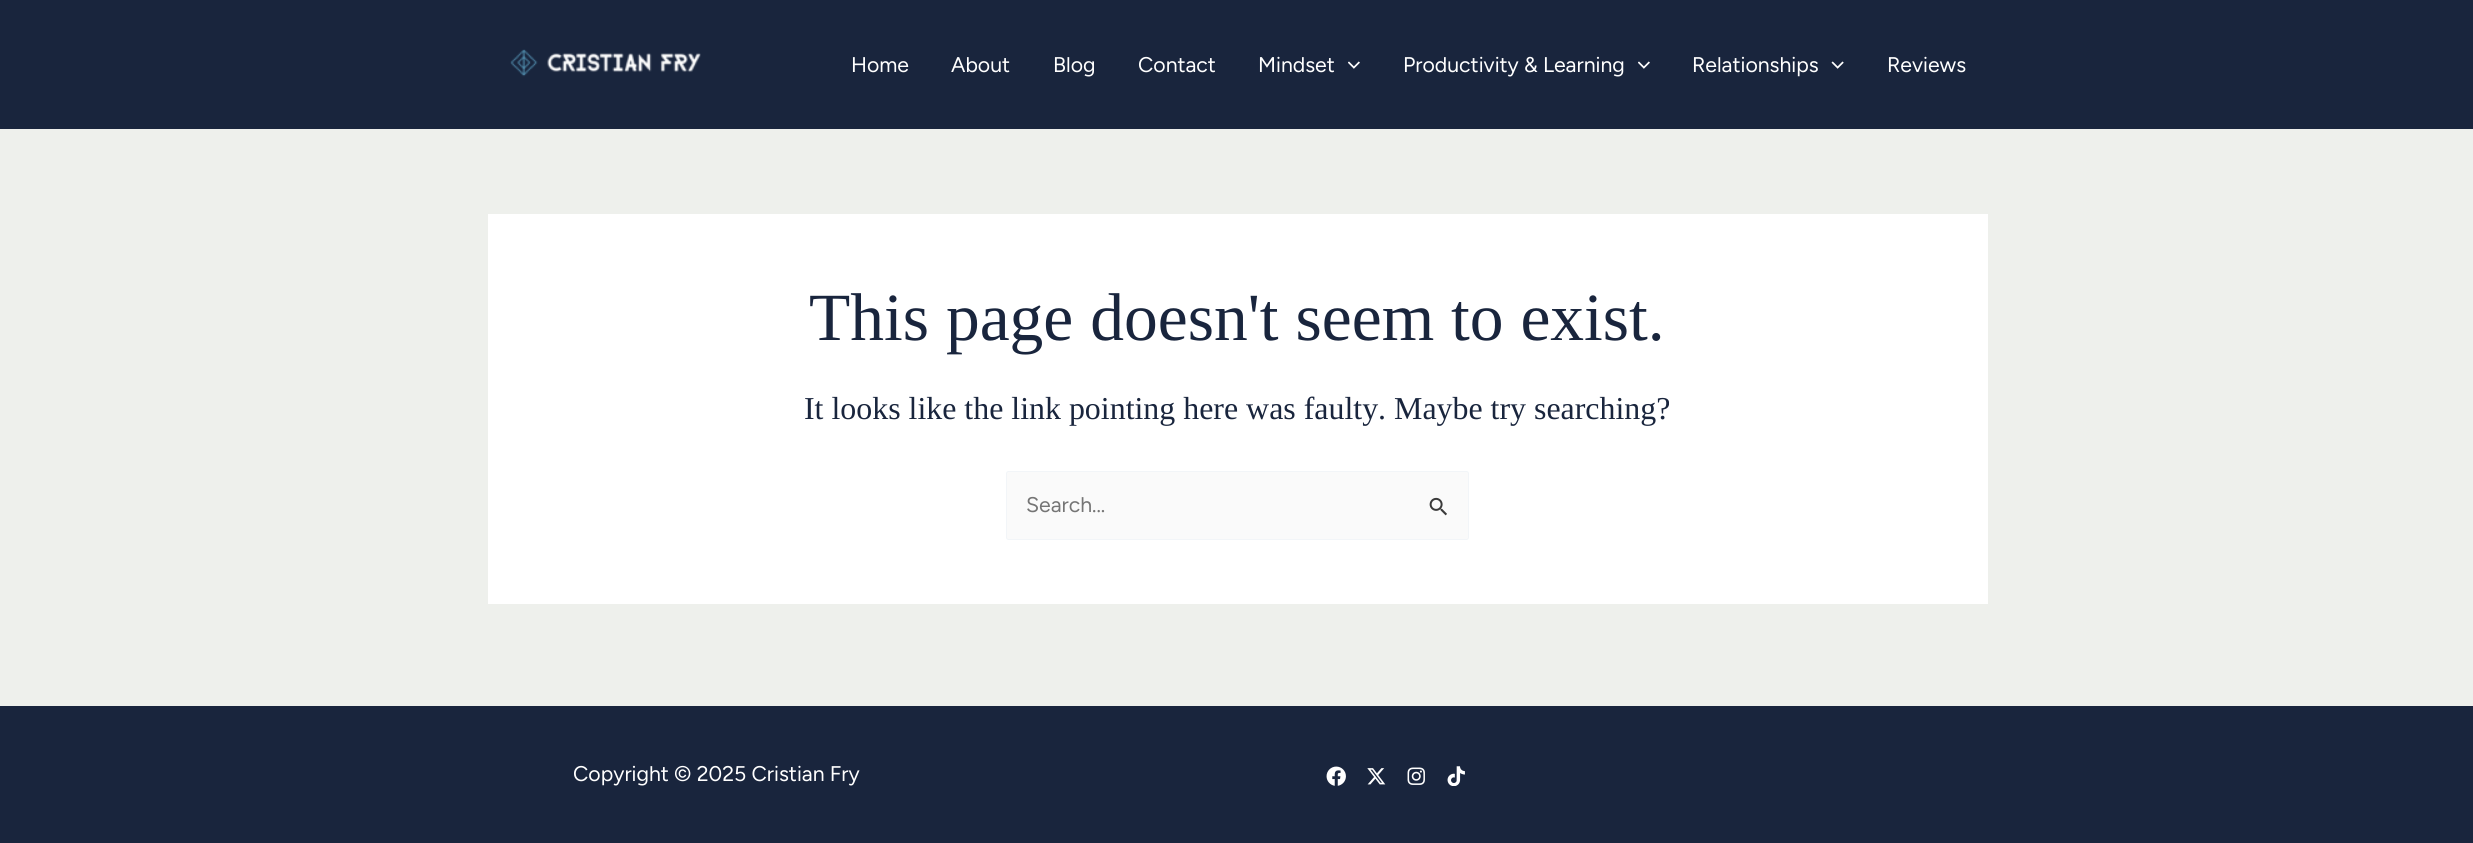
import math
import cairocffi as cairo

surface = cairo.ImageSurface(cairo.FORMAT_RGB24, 2473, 843)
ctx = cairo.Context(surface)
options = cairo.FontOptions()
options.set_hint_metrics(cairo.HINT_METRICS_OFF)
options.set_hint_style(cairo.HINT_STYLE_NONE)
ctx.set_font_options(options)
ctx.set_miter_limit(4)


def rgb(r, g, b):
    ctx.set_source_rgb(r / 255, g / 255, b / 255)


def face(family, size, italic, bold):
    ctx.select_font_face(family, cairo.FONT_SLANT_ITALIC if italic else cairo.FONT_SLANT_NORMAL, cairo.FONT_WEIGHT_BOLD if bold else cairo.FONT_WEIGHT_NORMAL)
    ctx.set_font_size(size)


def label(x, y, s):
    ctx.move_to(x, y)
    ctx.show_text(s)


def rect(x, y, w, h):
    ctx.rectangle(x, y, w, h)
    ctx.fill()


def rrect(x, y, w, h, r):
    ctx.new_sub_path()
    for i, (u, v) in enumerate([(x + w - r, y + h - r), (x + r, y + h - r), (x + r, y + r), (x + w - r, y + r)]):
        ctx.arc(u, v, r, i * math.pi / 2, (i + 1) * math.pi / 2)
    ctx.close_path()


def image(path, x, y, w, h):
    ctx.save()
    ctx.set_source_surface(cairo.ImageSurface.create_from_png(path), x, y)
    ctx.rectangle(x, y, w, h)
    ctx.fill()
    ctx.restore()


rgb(238, 240, 236)
ctx.paint()
rgb(25, 37, 61)
rect(0, 0, 2473, 129)
image('image0.png', 510, 49, 191, 28)
face('Figtree Light', 21.25, 0, 0)
rgb(255, 255, 255)
label(851, 72, 'Home')
label(951, 72, 'About')
label(1053, 72, 'Blog')
label(1138, 72, 'Contact')
label(1258, 72, 'Mindset')
image('image1.png', 1348, 61, 12, 8)
label(1403, 72, 'Productivity & Learning')
image('image1.png', 1638, 61, 12, 8)
label(1692, 72, 'Relationships')
image('image2.png', 1831, 61, 13, 8)
label(1887, 72, 'Reviews')
rect(488, 214, 1500, 390)
face('Liberation Serif', 67.5, 0, 0)
rgb(25, 37, 61)
label(809, 340, 'This page doesn\'t seem to exist.')
face('Liberation Serif', 31.9, 0, 0)
label(804, 419, 'It looks like the link pointing here was faulty. Maybe try searching?')
rgb(250, 250, 250)
rrect(1006.5, 471.5, 462, 68, 2)
ctx.fill_preserve()
rgb(242, 245, 248)
ctx.set_line_width(1)
ctx.stroke()
face('Figtree Light', 21.25, 0, 0)
rgb(117, 117, 117)
label(1026, 512, 'Search...')
image('image3.png', 1429, 497, 18, 19)
rgb(25, 37, 61)
rect(0, 706, 2473, 137)
rgb(255, 255, 255)
label(573, 781, 'Copyright © 2025 Cristian Fry')
image('image4.png', 1326, 766, 20, 20)
image('image5.png', 1367, 768, 19, 17)
image('image6.png', 1407, 767, 18, 18)
image('image7.png', 1447, 766, 18, 20)
surface.write_to_png('render.png')
